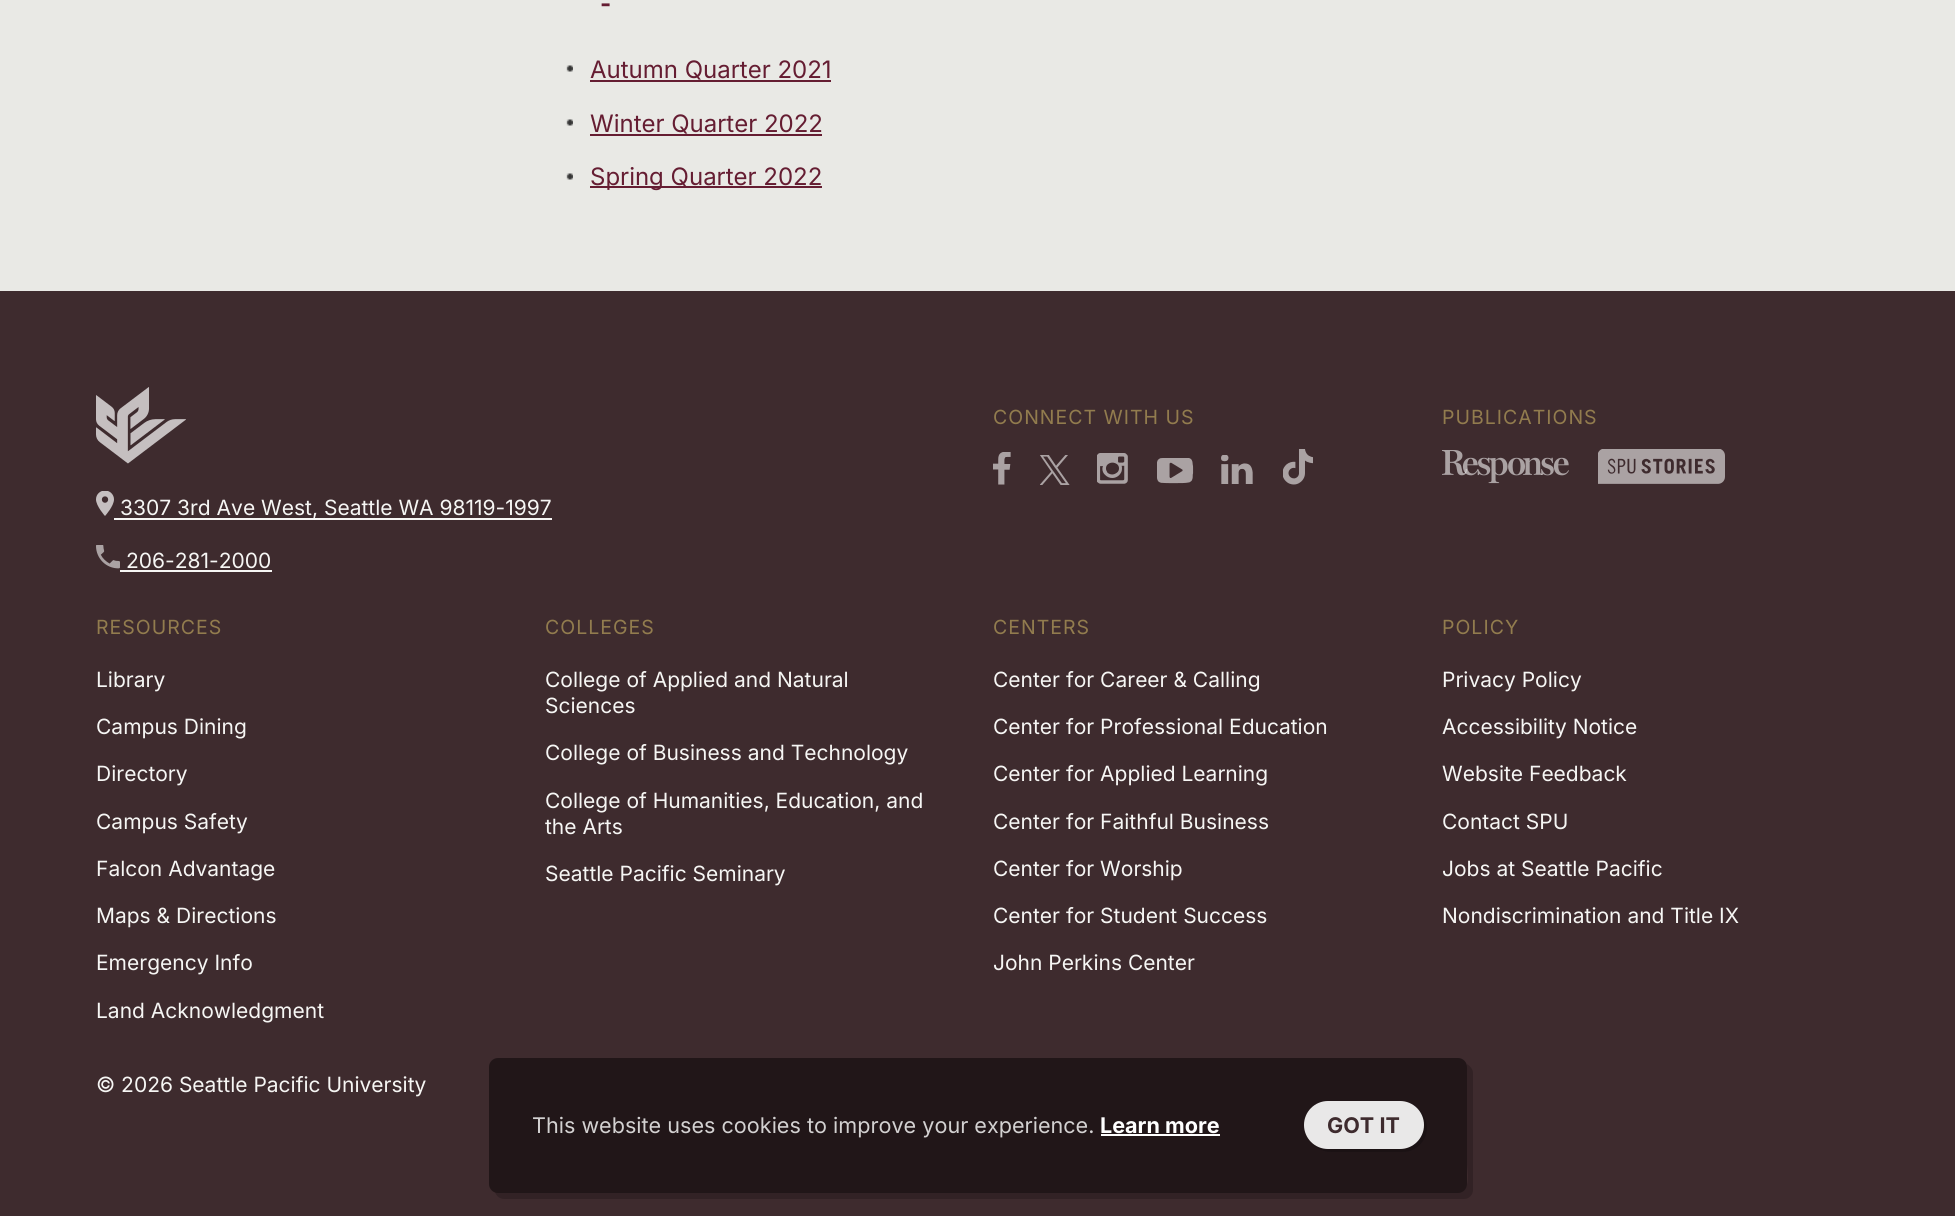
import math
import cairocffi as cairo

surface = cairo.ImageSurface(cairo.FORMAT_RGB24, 1955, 1216)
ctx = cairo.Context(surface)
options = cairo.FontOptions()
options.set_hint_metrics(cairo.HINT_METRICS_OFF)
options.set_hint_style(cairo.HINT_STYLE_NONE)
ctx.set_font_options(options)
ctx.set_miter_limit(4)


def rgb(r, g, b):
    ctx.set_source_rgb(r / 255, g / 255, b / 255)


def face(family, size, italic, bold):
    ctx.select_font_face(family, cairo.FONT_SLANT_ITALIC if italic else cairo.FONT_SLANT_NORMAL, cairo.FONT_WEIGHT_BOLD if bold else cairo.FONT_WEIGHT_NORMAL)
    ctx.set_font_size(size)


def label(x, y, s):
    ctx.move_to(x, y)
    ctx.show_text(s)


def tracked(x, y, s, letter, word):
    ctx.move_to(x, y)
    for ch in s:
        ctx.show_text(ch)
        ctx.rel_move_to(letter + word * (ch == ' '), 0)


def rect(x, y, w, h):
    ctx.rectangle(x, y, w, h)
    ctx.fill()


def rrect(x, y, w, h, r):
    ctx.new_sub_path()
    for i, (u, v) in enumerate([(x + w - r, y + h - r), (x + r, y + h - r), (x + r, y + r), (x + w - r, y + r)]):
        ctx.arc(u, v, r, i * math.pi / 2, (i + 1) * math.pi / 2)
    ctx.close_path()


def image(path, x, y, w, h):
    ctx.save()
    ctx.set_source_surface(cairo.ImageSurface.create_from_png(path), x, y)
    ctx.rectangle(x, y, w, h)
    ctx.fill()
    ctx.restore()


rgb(62, 43, 46)
ctx.paint()
rgb(233, 233, 229)
rect(0, 0, 1955, 291)
face('Inter', 24, 0, 1)
rgb(101, 29, 50)
label(600, 12, '-')
image('image0.png', 566, 65, 7, 7)
face('Inter', 24, 0, 0)
label(590, 78, 'Autumn Quarter 2021')
rect(590, 80, 241, 2)
image('image0.png', 566, 119, 7, 7)
label(590, 132, 'Winter Quarter 2022')
rect(590, 134, 232, 2)
image('image0.png', 566, 173, 7, 7)
rect(590, 186, 232, 2)
label(590, 185, 'Spring Quarter 2022')
face('Inter', 19.5, 0, 0)
rgb(146, 124, 78)
tracked(993, 424, 'CONNECT WITH US', 1, 0)
image('image1.png', 993, 452, 18, 33)
image('image2.png', 1040, 455, 30, 30)
image('image3.png', 1097, 453, 31, 31)
image('image4.png', 1157, 458, 37, 26)
image('image5.png', 1221, 455, 32, 29)
image('image6.png', 1283, 449, 30, 36)
tracked(1442, 424, 'PUBLICATIONS', 1, 0)
image('image7.png', 1442, 450, 127, 34)
image('image8.png', 1598, 449, 127, 35)
image('image9.png', 96, 387, 90, 77)
image('image10.png', 96, 491, 18, 25)
rgb(246, 246, 244)
rect(114, 518, 438, 2)
face('Inter', 21, 0, 0)
label(120, 515, '3307 3rd Ave West, Seattle WA 98119-1997')
image('image11.png', 96, 545, 24, 24)
label(126, 568, '206-281-2000')
rect(120, 570, 152, 2)
face('Inter', 19.5, 0, 0)
rgb(146, 124, 78)
tracked(96, 634, 'RESOURCES', 1, 0)
face('Inter', 21, 0, 0)
rgb(246, 246, 244)
label(96, 687, 'Library')
label(96, 734, 'Campus Dining')
label(96, 781, 'Directory')
label(96, 829, 'Campus Safety')
label(96, 876, 'Falcon Advantage')
label(96, 923, 'Maps & Directions')
label(96, 970, 'Emergency Info')
label(96, 1018, 'Land Acknowledgment')
face('Inter', 19.5, 0, 0)
rgb(146, 124, 78)
tracked(545, 634, 'COLLEGES', 1, 0)
face('Inter', 21, 0, 0)
rgb(246, 246, 244)
label(545, 687, 'College of Applied and Natural')
label(545, 713, 'Sciences')
label(545, 760, 'College of Business and Technology')
label(545, 808, 'College of Humanities, Education, and')
label(545, 834, 'the Arts')
label(545, 881, 'Seattle Pacific Seminary')
face('Inter', 19.5, 0, 0)
rgb(146, 124, 78)
tracked(993, 634, 'CENTERS', 1, 0)
face('Inter', 21, 0, 0)
rgb(246, 246, 244)
label(993, 687, 'Center for Career & Calling')
label(993, 734, 'Center for Professional Education')
label(993, 781, 'Center for Applied Learning')
label(993, 829, 'Center for Faithful Business')
label(993, 876, 'Center for Worship')
label(993, 923, 'Center for Student Success')
label(993, 970, 'John Perkins Center')
face('Inter', 19.5, 0, 0)
rgb(146, 124, 78)
tracked(1442, 634, 'POLICY', 1, 0)
face('Inter', 21, 0, 0)
rgb(246, 246, 244)
label(1442, 687, 'Privacy Policy')
label(1442, 734, 'Accessibility Notice')
label(1442, 781, 'Website Feedback')
label(1442, 829, 'Contact SPU')
label(1442, 876, 'Jobs at Seattle Pacific')
label(1442, 923, 'Nondiscrimination and Title IX')
label(96, 1092, '© 2026 Seattle Pacific University')
rgb(50, 34, 37)
ctx.new_path()
ctx.move_to(495, 1192)
ctx.curve_to(496, 1196, 500, 1199, 504, 1199)
ctx.line_to(1464, 1199)
ctx.curve_to(1469, 1199, 1473, 1195, 1473, 1190)
ctx.line_to(1473, 1073)
ctx.curve_to(1473, 1069, 1470, 1066, 1467, 1064)
ctx.line_to(1467, 1164)
ctx.curve_to(1467, 1170, 1472, 1192, 1458, 1192)
ctx.close_path()
ctx.fill()
ctx.set_source_rgba(0.125, 0.086, 0.094, 0.95)
rrect(489, 1058, 978, 135, 9)
ctx.fill()
face('Inter', 21.6, 0, 0)
rgb(211, 209, 209)
label(532, 1133, 'This website uses cookies to improve your experience.')
face('Inter', 21.6, 0, 1)
rgb(255, 255, 255)
label(1100, 1133, 'Learn more')
rect(1101, 1134, 119, 2)
rgb(27, 18, 20)
ctx.new_path()
ctx.move_to(1314, 1145)
ctx.curve_to(1318, 1149, 1324, 1152, 1331, 1152)
ctx.line_to(1403, 1152)
ctx.curve_to(1416, 1152, 1427, 1141, 1427, 1128)
ctx.curve_to(1427, 1120, 1423, 1113, 1417, 1108)
ctx.curve_to(1421, 1113, 1424, 1119, 1424, 1125)
ctx.curve_to(1424, 1138, 1413, 1149, 1400, 1149)
ctx.line_to(1328, 1149)
ctx.curve_to(1322, 1149, 1318, 1147, 1314, 1145)
ctx.close_path()
ctx.fill()
ctx.set_source_rgba(1, 1, 1, 0.9)
rrect(1304, 1101, 120, 48, 24)
ctx.fill()
rgb(62, 43, 46)
label(1327, 1133, 'GOT IT')
surface.write_to_png('render.png')
